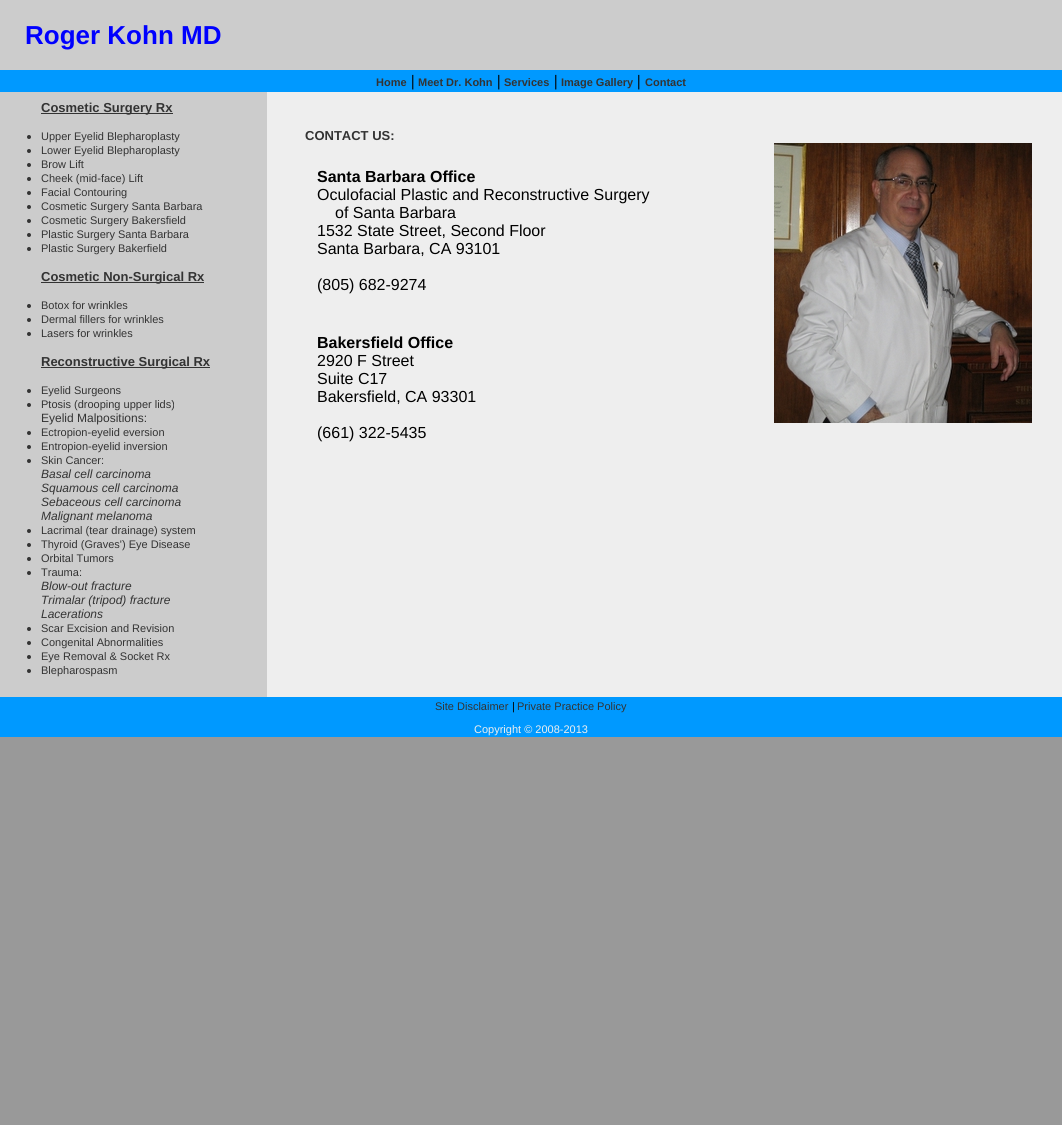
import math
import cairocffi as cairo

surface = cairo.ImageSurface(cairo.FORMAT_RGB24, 1062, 1125)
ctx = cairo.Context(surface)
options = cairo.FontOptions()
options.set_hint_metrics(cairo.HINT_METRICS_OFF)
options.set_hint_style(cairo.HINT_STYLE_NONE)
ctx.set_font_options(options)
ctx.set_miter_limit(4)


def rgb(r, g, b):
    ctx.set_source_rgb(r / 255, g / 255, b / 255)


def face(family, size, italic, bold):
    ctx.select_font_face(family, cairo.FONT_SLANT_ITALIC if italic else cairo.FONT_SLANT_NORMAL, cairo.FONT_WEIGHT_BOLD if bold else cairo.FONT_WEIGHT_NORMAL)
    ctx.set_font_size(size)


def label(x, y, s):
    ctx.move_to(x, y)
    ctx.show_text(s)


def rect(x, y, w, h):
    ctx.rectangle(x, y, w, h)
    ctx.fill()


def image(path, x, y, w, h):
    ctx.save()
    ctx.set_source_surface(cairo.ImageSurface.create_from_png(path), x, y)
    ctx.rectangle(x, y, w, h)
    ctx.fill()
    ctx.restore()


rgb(153, 153, 153)
ctx.paint()
rgb(204, 204, 204)
rect(0, 0, 1062, 70)
face('Liberation Sans', 26, 0, 1)
rgb(0, 0, 255)
label(25, 44, 'Roger Kohn MD')
rgb(0, 153, 255)
rect(0, 70, 1062, 22)
face('Liberation Sans', 11, 0, 1)
rgb(51, 51, 51)
label(376, 86, 'Home')
face('Liberation Serif', 16, 0, 1)
rgb(0, 0, 0)
label(411, 86, '|')
face('Liberation Sans', 11, 0, 1)
rgb(51, 51, 51)
label(418, 86, 'Meet Dr. Kohn')
face('Liberation Serif', 16, 0, 1)
rgb(0, 0, 0)
label(497, 86, '|')
face('Liberation Sans', 11, 0, 1)
rgb(51, 51, 51)
label(504, 86, 'Services')
face('Liberation Serif', 16, 0, 1)
rgb(0, 0, 0)
label(554, 86, '|')
face('Liberation Sans', 11, 0, 1)
rgb(51, 51, 51)
label(561, 86, 'Image Gallery')
face('Liberation Serif', 16, 0, 1)
rgb(0, 0, 0)
label(637, 86, '|')
face('Liberation Sans', 11, 0, 1)
rgb(51, 51, 51)
label(645, 86, 'Contact')
rgb(204, 204, 204)
rect(0, 92, 267, 605)
rgb(51, 51, 51)
rect(41, 113, 132, 1)
face('Liberation Sans', 13, 0, 1)
label(41, 112, 'Cosmetic Surgery Rx')
ctx.new_path()
ctx.arc(29, 137, 2, 0, 2 * math.pi)
ctx.fill()
face('Liberation Sans', 11, 0, 0)
label(41, 140, 'Upper Eyelid Blepharoplasty')
ctx.new_path()
ctx.arc(29, 151, 2, 0, 2 * math.pi)
ctx.fill()
label(41, 154, 'Lower Eyelid Blepharoplasty')
ctx.new_path()
ctx.arc(29, 165, 2, 0, 2 * math.pi)
ctx.fill()
label(41, 168, 'Brow Lift')
ctx.new_path()
ctx.arc(29, 179, 2, 0, 2 * math.pi)
ctx.fill()
label(41, 182, 'Cheek (mid-face) Lift')
ctx.new_path()
ctx.arc(29, 193, 2, 0, 2 * math.pi)
ctx.fill()
label(41, 196, 'Facial Contouring')
ctx.new_path()
ctx.arc(29, 207, 2, 0, 2 * math.pi)
ctx.fill()
label(41, 210, 'Cosmetic Surgery Santa Barbara')
ctx.new_path()
ctx.arc(29, 221, 2, 0, 2 * math.pi)
ctx.fill()
label(41, 224, 'Cosmetic Surgery Bakersfield')
ctx.new_path()
ctx.arc(29, 235, 2, 0, 2 * math.pi)
ctx.fill()
label(41, 238, 'Plastic Surgery Santa Barbara')
ctx.new_path()
ctx.arc(29, 249, 2, 0, 2 * math.pi)
ctx.fill()
label(41, 252, 'Plastic Surgery Bakerfield')
rect(41, 282, 163, 1)
face('Liberation Sans', 13, 0, 1)
label(41, 281, 'Cosmetic Non-Surgical Rx')
ctx.new_path()
ctx.arc(29, 306, 2, 0, 2 * math.pi)
ctx.fill()
face('Liberation Sans', 11, 0, 0)
label(41, 309, 'Botox for wrinkles')
ctx.new_path()
ctx.arc(29, 320, 2, 0, 2 * math.pi)
ctx.fill()
label(41, 323, 'Dermal fillers for wrinkles')
ctx.new_path()
ctx.arc(29, 334, 2, 0, 2 * math.pi)
ctx.fill()
label(41, 337, 'Lasers for wrinkles')
rect(41, 367, 169, 1)
face('Liberation Sans', 13, 0, 1)
label(41, 366, 'Reconstructive Surgical Rx')
ctx.new_path()
ctx.arc(29, 391, 2, 0, 2 * math.pi)
ctx.fill()
face('Liberation Sans', 11, 0, 0)
label(41, 394, 'Eyelid Surgeons')
ctx.new_path()
ctx.arc(29, 405, 2, 0, 2 * math.pi)
ctx.fill()
label(41, 408, 'Ptosis (drooping upper lids)')
face('Liberation Sans', 12, 0, 0)
label(41, 422, 'Eyelid Malpositions:')
ctx.new_path()
ctx.arc(29, 433, 2, 0, 2 * math.pi)
ctx.fill()
face('Liberation Sans', 11, 0, 0)
label(41, 436, 'Ectropion-eyelid eversion')
ctx.new_path()
ctx.arc(29, 447, 2, 0, 2 * math.pi)
ctx.fill()
label(41, 450, 'Entropion-eyelid inversion')
ctx.new_path()
ctx.arc(29, 461, 2, 0, 2 * math.pi)
ctx.fill()
label(41, 464, 'Skin Cancer:')
face('Liberation Sans', 12, 1, 0)
label(41, 478, 'Basal cell carcinoma')
label(41, 492, 'Squamous cell carcinoma')
label(41, 506, 'Sebaceous cell carcinoma')
label(41, 520, 'Malignant melanoma')
ctx.new_path()
ctx.arc(29, 531, 2, 0, 2 * math.pi)
ctx.fill()
face('Liberation Sans', 11, 0, 0)
label(41, 534, 'Lacrimal (tear drainage) system')
ctx.new_path()
ctx.arc(29, 545, 2, 0, 2 * math.pi)
ctx.fill()
label(41, 548, 'Thyroid (Graves\') Eye Disease')
ctx.new_path()
ctx.arc(29, 559, 2, 0, 2 * math.pi)
ctx.fill()
label(41, 562, 'Orbital Tumors')
ctx.new_path()
ctx.arc(29, 573, 2, 0, 2 * math.pi)
ctx.fill()
label(41, 576, 'Trauma:')
face('Liberation Sans', 12, 1, 0)
label(41, 590, 'Blow-out fracture')
label(41, 604, 'Trimalar (tripod) fracture')
label(41, 618, 'Lacerations')
ctx.new_path()
ctx.arc(29, 629, 2, 0, 2 * math.pi)
ctx.fill()
face('Liberation Sans', 11, 0, 0)
label(41, 632, 'Scar Excision and Revision')
ctx.new_path()
ctx.arc(29, 643, 2, 0, 2 * math.pi)
ctx.fill()
label(41, 646, 'Congenital Abnormalities')
ctx.new_path()
ctx.arc(29, 657, 2, 0, 2 * math.pi)
ctx.fill()
label(41, 660, 'Eye Removal & Socket Rx')
ctx.new_path()
ctx.arc(29, 671, 2, 0, 2 * math.pi)
ctx.fill()
label(41, 674, 'Blepharospasm')
rgb(238, 238, 238)
rect(267, 92, 795, 605)
face('Liberation Sans', 13, 0, 1)
rgb(51, 51, 51)
label(305, 140, 'CONTACT US:')
face('Liberation Sans', 16, 0, 1)
rgb(0, 0, 0)
label(317, 182, 'Santa Barbara Office')
face('Liberation Sans', 16, 0, 0)
label(317, 200, 'Oculofacial Plastic and Reconstructive Surgery')
label(335, 218, 'of Santa Barbara')
label(317, 236, '1532 State Street, Second Floor')
label(317, 254, 'Santa Barbara, CA 93101')
label(317, 290, '(805) 682-9274')
face('Liberation Sans', 16, 0, 1)
label(317, 348, 'Bakersfield Office')
face('Liberation Sans', 16, 0, 0)
label(317, 366, '2920 F Street')
label(317, 384, 'Suite C17')
label(317, 402, 'Bakersfield, CA 93301')
label(317, 438, '(661) 322-5435')
image('image0.png', 774, 143, 258, 280)
rgb(0, 153, 255)
rect(0, 697, 1062, 40)
face('Liberation Sans', 11, 0, 0)
rgb(51, 51, 51)
label(435, 710, 'Site Disclaimer')
rgb(0, 0, 0)
label(512, 710, '|')
rgb(51, 51, 51)
label(517, 710, 'Private Practice Policy')
rgb(238, 238, 238)
label(474, 733, 'Copyright © 2008-2013')
surface.write_to_png('render.png')
